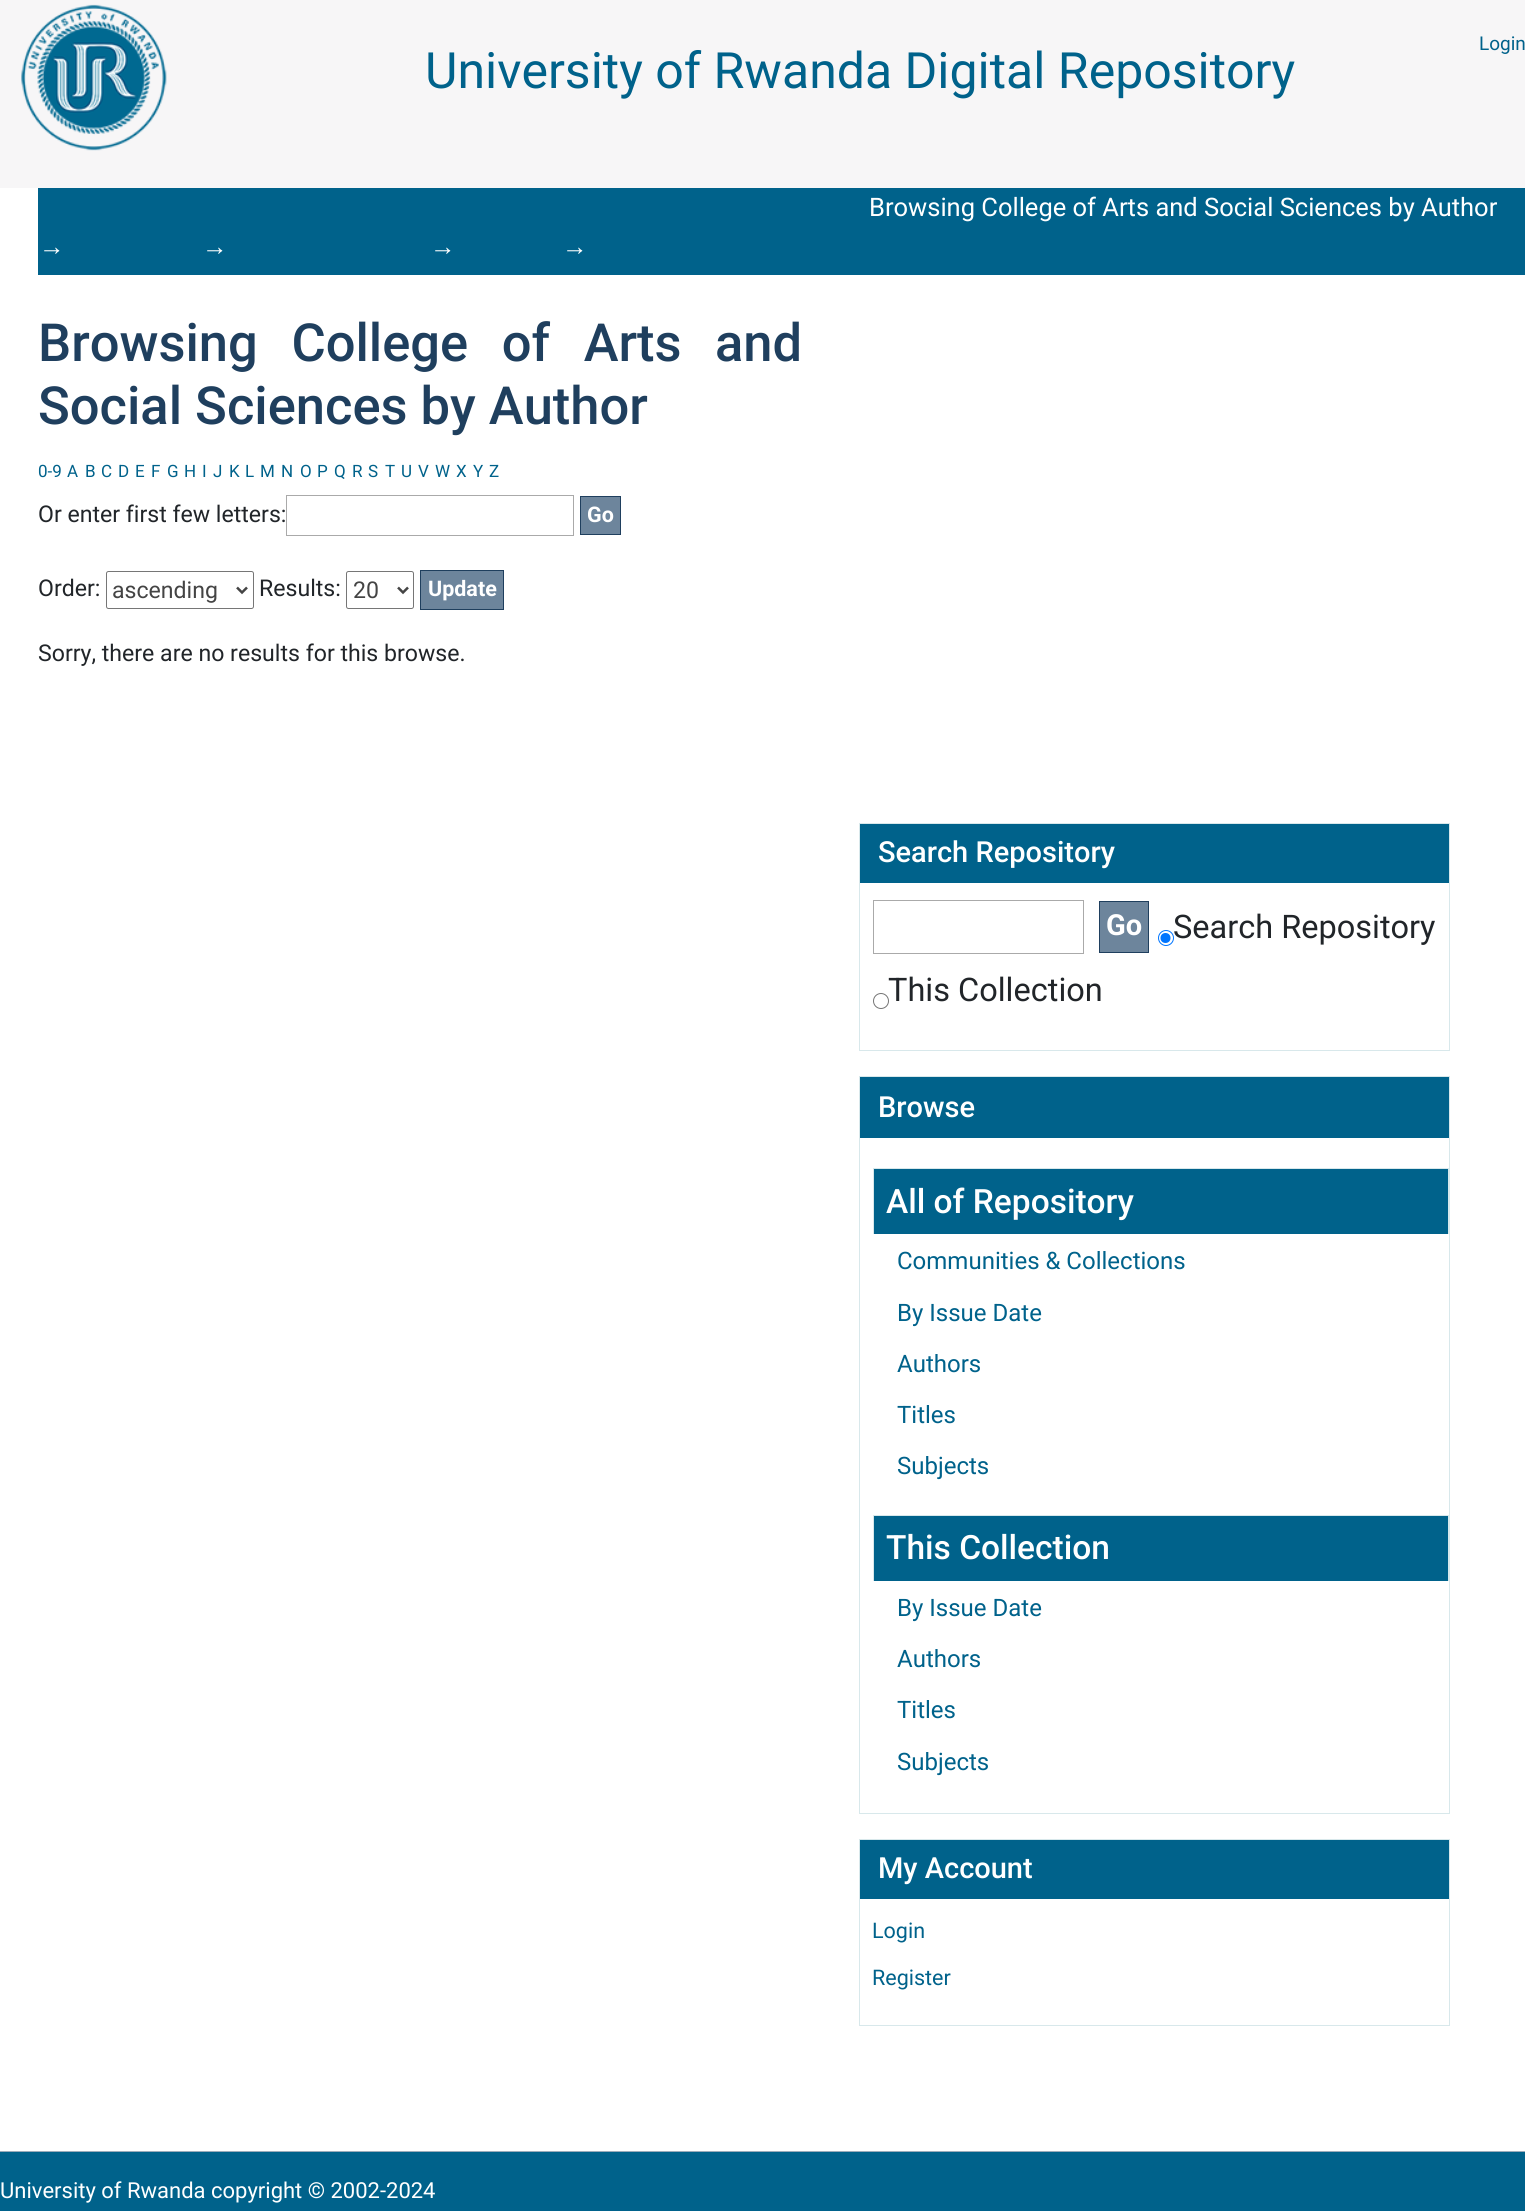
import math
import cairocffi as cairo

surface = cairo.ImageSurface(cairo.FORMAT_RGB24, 1525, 2211)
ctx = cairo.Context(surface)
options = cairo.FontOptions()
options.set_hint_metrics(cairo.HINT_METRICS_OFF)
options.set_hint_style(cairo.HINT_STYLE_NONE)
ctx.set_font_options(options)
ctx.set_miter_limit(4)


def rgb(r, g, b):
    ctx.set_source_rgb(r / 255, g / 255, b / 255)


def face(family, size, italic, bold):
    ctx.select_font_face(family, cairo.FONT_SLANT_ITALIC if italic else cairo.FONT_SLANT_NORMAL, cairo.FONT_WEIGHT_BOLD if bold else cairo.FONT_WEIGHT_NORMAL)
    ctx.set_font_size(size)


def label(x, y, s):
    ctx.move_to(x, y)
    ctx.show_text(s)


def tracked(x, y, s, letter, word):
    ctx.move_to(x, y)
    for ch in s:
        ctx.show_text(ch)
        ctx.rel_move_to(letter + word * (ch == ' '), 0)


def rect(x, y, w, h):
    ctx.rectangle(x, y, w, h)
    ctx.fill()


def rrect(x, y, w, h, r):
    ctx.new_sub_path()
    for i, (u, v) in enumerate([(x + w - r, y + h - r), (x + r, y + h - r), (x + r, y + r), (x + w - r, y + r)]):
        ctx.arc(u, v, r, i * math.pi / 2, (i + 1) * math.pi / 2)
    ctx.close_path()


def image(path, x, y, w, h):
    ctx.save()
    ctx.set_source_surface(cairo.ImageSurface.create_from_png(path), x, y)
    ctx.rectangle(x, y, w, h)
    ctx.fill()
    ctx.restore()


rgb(255, 255, 255)
ctx.paint()
rgb(247, 246, 247)
rect(0, 0, 1525, 188)
face('Roboto', 19, 0, 0)
rgb(0, 98, 139)
label(1479, 50, 'Login')
image('image0.png', 21, 4, 146, 147)
face('Roboto', 50, 0, 0)
label(425, 88, 'University of Rwanda Digital Repository')
rect(38, 188, 1487, 87)
face('Roboto', 25.5, 0, 0)
rgb(255, 255, 255)
label(869, 216, 'Browsing College of Arts and Social Sciences by Author')
face('Liberation Sans', 25.5, 0, 0)
label(39, 255, '→')
label(202, 255, '→')
label(430, 255, '→')
label(562, 255, '→')
face('Roboto Medium', 52.5, 0, 0)
rgb(31, 63, 94)
tracked(38, 361, 'Browsing College of Arts and', 0, 20.5)
label(38, 424, 'Social Sciences by Author')
face('Roboto', 17, 0, 0)
rgb(0, 98, 139)
label(38, 477, '0-9')
label(67, 477, 'A')
label(85, 477, 'B')
label(101, 477, 'C')
label(118, 477, 'D')
label(135, 477, 'E')
label(151, 477, 'F')
label(167, 477, 'G')
label(184, 477, 'H')
label(202, 477, 'I')
label(213, 477, 'J')
label(229, 477, 'K')
label(245, 477, 'L')
label(260, 477, 'M')
label(281, 477, 'N')
label(300, 477, 'O')
label(317, 477, 'P')
label(334, 477, 'Q')
label(352, 477, 'R')
label(368, 477, 'S')
label(385, 477, 'T')
label(401, 477, 'U')
label(418, 477, 'V')
label(435, 477, 'W')
label(456, 477, 'X')
label(473, 477, 'Y')
label(489, 477, 'Z')
face('Roboto', 23.1, 0, 0)
rgb(33, 37, 41)
label(38, 522, 'Or enter first few letters:')
ctx.rectangle(286.5, 495.5, 287, 40)
rgb(170, 170, 170)
ctx.set_line_width(1)
ctx.stroke()
rgb(109, 133, 156)
ctx.rectangle(580.5, 496.5, 40, 38)
ctx.fill_preserve()
rgb(31, 63, 94)
ctx.stroke()
face('Roboto', 21.5, 0, 1)
rgb(255, 255, 255)
label(587, 522, 'Go')
face('Roboto', 23.1, 0, 0)
rgb(33, 37, 41)
label(38, 596, 'Order:')
rrect(106.5, 571.5, 147, 37, 2)
rgb(118, 118, 118)
ctx.stroke()
ctx.new_path()
ctx.move_to(237, 587.5)
ctx.line_to(242, 592.5)
ctx.line_to(247, 587.5)
rgb(68, 68, 68)
ctx.set_line_width(2.5)
ctx.stroke()
label(112, 598, 'ascending')
rgb(33, 37, 41)
label(259, 596, 'Results:')
rrect(346.5, 571.5, 67, 37, 2)
rgb(118, 118, 118)
ctx.set_line_width(1)
ctx.stroke()
ctx.new_path()
ctx.move_to(398, 587.5)
ctx.line_to(403, 592.5)
ctx.line_to(408, 587.5)
rgb(68, 68, 68)
ctx.set_line_width(2.5)
ctx.stroke()
label(353, 598, '20')
rgb(109, 133, 156)
ctx.rectangle(420.5, 570.5, 83, 39)
ctx.fill_preserve()
rgb(31, 63, 94)
ctx.set_line_width(1)
ctx.stroke()
face('Roboto', 21.5, 0, 1)
rgb(255, 255, 255)
label(428, 596, 'Update')
face('Roboto', 23.1, 0, 0)
rgb(33, 37, 41)
label(38, 661, 'Sorry, there are no results for this browse.')
rgb(0, 98, 139)
rect(860, 824, 589, 59)
rgb(216, 232, 235)
rect(859, 823, 591, 1)
rect(1449, 881, 1, 170)
rect(1449, 823, 1, 60)
rect(859, 1050, 591, 1)
rect(859, 881, 1, 170)
rect(859, 823, 1, 60)
face('Roboto Medium', 29, 0, 0)
rgb(255, 255, 255)
label(878, 862, 'Search Repository')
ctx.rectangle(873.5, 900.5, 210, 53)
rgb(170, 170, 170)
ctx.stroke()
rgb(109, 133, 156)
ctx.rectangle(1099.5, 901.5, 49, 51)
ctx.fill_preserve()
rgb(31, 63, 94)
ctx.stroke()
face('Roboto', 29, 0, 1)
rgb(255, 255, 255)
label(1106, 935, 'Go')
ctx.new_path()
ctx.arc(1166, 938, 7.5, 0, 2 * math.pi)
rgb(0, 117, 255)
ctx.stroke()
ctx.arc(1165.5, 938, 5, 0, 2 * math.pi)
ctx.fill()
face('Roboto', 32.5, 0, 0)
rgb(33, 37, 41)
label(1173, 938, 'Search Repository')
ctx.new_path()
ctx.arc(881, 1001, 7.5, 0, 2 * math.pi)
rgb(118, 118, 118)
ctx.stroke()
rgb(33, 37, 41)
label(888, 1001, 'This Collection')
rgb(0, 98, 139)
rect(860, 1077, 589, 61)
rgb(216, 232, 235)
rect(859, 1076, 591, 1)
rect(1449, 1136, 1, 678)
rect(1449, 1076, 1, 62)
rect(859, 1813, 591, 1)
rect(859, 1136, 1, 678)
rect(859, 1076, 1, 62)
face('Roboto Medium', 29, 0, 0)
rgb(255, 255, 255)
label(878, 1117, 'Browse')
rgb(0, 98, 139)
rect(874, 1169, 574, 65)
rgb(216, 232, 235)
rect(873, 1168, 576, 1)
rect(1448, 1168, 1, 66)
rect(873, 1168, 1, 66)
face('Roboto Medium', 33.5, 0, 0)
rgb(255, 255, 255)
label(886, 1213, 'All of Repository')
face('Roboto', 24, 0, 0)
rgb(0, 98, 139)
label(897, 1269, 'Communities & Collections')
label(897, 1321, 'By Issue Date')
label(897, 1372, 'Authors')
label(897, 1423, 'Titles')
label(897, 1474, 'Subjects')
rect(874, 1516, 574, 65)
rgb(216, 232, 235)
rect(873, 1515, 576, 1)
rect(1448, 1515, 1, 66)
rect(873, 1515, 1, 66)
face('Roboto Medium', 33.5, 0, 0)
rgb(255, 255, 255)
label(886, 1559, 'This Collection')
face('Roboto', 24, 0, 0)
rgb(0, 98, 139)
label(897, 1616, 'By Issue Date')
label(897, 1667, 'Authors')
label(897, 1718, 'Titles')
label(897, 1770, 'Subjects')
rect(860, 1840, 589, 59)
rgb(216, 232, 235)
rect(859, 1839, 591, 1)
rect(1449, 1898, 1, 128)
rect(1449, 1839, 1, 60)
rect(859, 2025, 591, 1)
rect(859, 1898, 1, 128)
rect(859, 1839, 1, 60)
face('Roboto Medium', 29, 0, 0)
rgb(255, 255, 255)
label(878, 1878, 'My Account')
face('Roboto', 21.5, 0, 0)
rgb(0, 98, 139)
label(872, 1938, 'Login')
label(872, 1985, 'Register')
rect(0, 2152, 1525, 59)
rgb(156, 172, 186)
rect(0, 2151, 1525, 1)
face('Roboto', 22, 0, 0)
rgb(255, 255, 255)
label(0, 2198, 'University of Rwanda copyright © 2002-2024')
surface.write_to_png('render.png')
